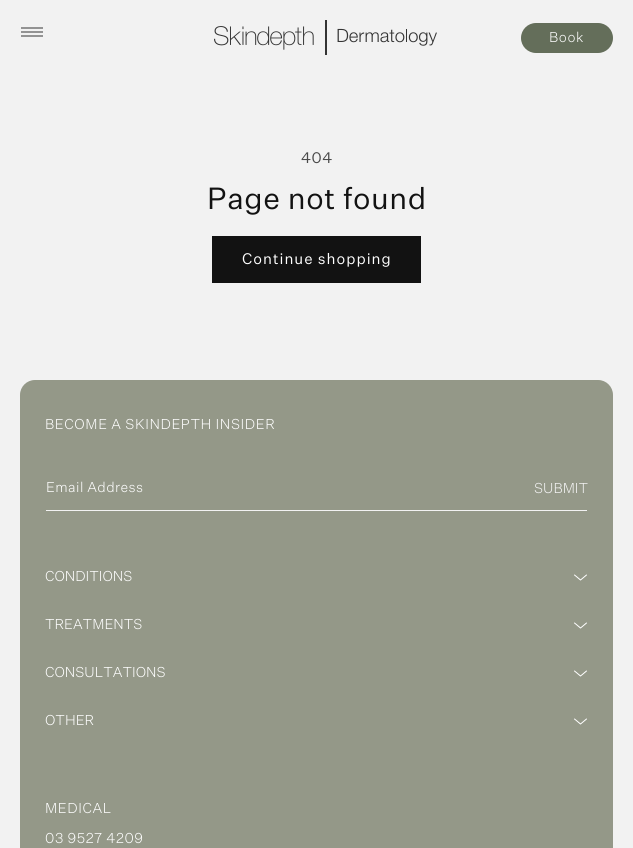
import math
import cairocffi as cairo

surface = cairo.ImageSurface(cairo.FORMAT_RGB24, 633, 848)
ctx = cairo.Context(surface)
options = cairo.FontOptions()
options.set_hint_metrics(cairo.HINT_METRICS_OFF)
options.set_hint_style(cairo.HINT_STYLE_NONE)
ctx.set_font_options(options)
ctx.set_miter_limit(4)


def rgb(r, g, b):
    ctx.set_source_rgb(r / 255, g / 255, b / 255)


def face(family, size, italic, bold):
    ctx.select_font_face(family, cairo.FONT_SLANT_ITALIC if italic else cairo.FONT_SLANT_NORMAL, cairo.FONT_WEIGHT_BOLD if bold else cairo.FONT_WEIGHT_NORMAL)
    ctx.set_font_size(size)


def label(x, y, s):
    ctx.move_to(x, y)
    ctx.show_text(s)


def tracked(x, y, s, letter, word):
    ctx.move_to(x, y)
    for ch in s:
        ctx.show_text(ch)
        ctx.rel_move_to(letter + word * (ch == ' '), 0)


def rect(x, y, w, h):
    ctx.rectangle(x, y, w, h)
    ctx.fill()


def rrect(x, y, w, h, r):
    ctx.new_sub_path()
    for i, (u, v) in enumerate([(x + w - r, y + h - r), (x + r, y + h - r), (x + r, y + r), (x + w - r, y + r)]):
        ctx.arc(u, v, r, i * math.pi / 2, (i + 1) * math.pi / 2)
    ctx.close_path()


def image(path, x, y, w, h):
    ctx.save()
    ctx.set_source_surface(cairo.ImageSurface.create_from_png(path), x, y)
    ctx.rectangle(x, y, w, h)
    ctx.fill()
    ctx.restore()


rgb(242, 242, 242)
ctx.paint()
ctx.new_path()
ctx.move_to(21, 28)
ctx.line_to(43, 28)
ctx.move_to(21, 32)
ctx.line_to(43, 32)
ctx.move_to(21, 36)
ctx.line_to(43, 36)
rgb(52, 52, 52)
ctx.set_line_width(1)
ctx.stroke()
image('image0.png', 214, 26, 100, 24)
rect(325, 20, 2, 35)
image('image1.png', 337, 28, 100, 18)
rgb(100, 110, 90)
rrect(521, 23, 92, 30, 15)
ctx.fill()
face('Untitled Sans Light', 14, 0, 0)
rgb(255, 255, 255)
tracked(549, 42, 'Book', 0.6, 0)
face('Untitled Sans', 15, 0, 0)
rgb(74, 74, 74)
tracked(301, 163, '404', 0.6, 0)
face('Untitled Sans', 30, 0, 0)
rgb(18, 18, 18)
tracked(207, 209, 'Page not found', 0.6, 0)
rect(212, 236, 209, 47)
face('Untitled Sans', 15, 0, 0)
rgb(255, 255, 255)
tracked(242, 264, 'Continue shopping', 1, 0)
rgb(148, 152, 136)
rrect(20, 380, 593, 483, 15)
ctx.fill()
face('Untitled Sans Light', 14, 0, 0)
rgb(255, 255, 255)
tracked(45, 429, 'BECOME A SKINDEPTH INSIDER', 0.6, 0)
tracked(46, 492, 'Email Address', 0.4, 0)
rgb(242, 242, 242)
label(534, 493, 'SUBMIT')
rect(46, 510, 541, 1)
rgb(255, 255, 255)
label(45, 581, 'CONDITIONS')
ctx.new_path()
ctx.move_to(586.5, 575)
ctx.line_to(580.5, 580)
ctx.line_to(574.5, 575)
ctx.set_line_cap(cairo.LINE_CAP_ROUND)
ctx.set_line_join(cairo.LINE_JOIN_ROUND)
ctx.stroke()
label(45, 629, 'TREATMENTS')
ctx.new_path()
ctx.move_to(586.5, 623)
ctx.line_to(580.5, 628)
ctx.line_to(574.5, 623)
ctx.stroke()
label(45, 677, 'CONSULTATIONS')
ctx.new_path()
ctx.move_to(586.5, 671)
ctx.line_to(580.5, 676)
ctx.line_to(574.5, 671)
ctx.stroke()
label(45, 725, 'OTHER')
ctx.new_path()
ctx.move_to(586.5, 719)
ctx.line_to(580.5, 724)
ctx.line_to(574.5, 719)
ctx.stroke()
tracked(45, 813, 'MEDICAL', 0.6, 0)
tracked(45, 843, '03 9527 4209', 0.6, 0)
surface.write_to_png('render.png')
